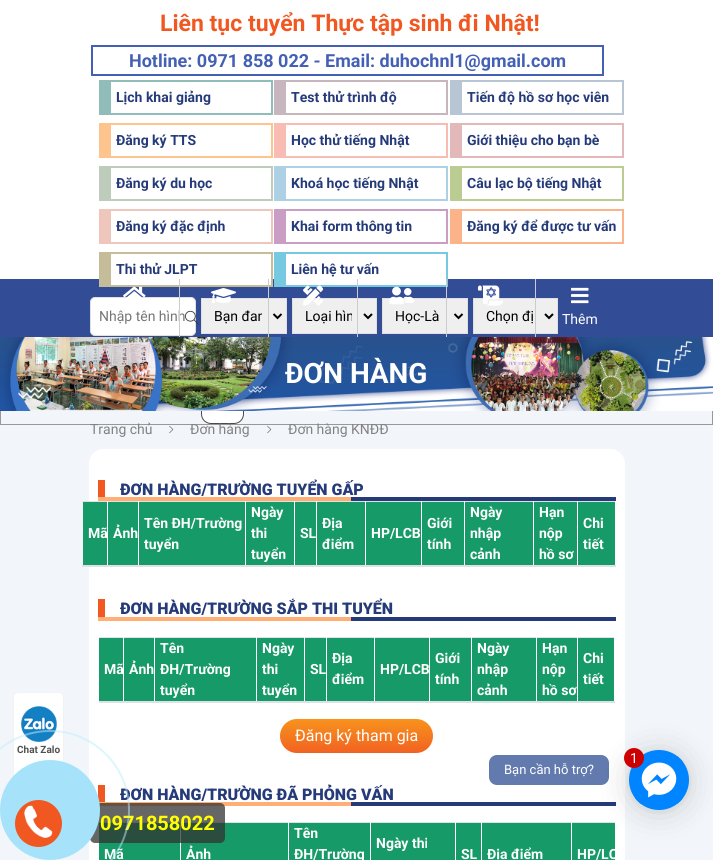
import math
import cairocffi as cairo

surface = cairo.ImageSurface(cairo.FORMAT_RGB24, 713, 860)
ctx = cairo.Context(surface)
options = cairo.FontOptions()
options.set_hint_metrics(cairo.HINT_METRICS_OFF)
options.set_hint_style(cairo.HINT_STYLE_NONE)
ctx.set_font_options(options)
ctx.set_miter_limit(4)


def rgb(r, g, b):
    ctx.set_source_rgb(r / 255, g / 255, b / 255)


def face(family, size, italic, bold):
    ctx.select_font_face(family, cairo.FONT_SLANT_ITALIC if italic else cairo.FONT_SLANT_NORMAL, cairo.FONT_WEIGHT_BOLD if bold else cairo.FONT_WEIGHT_NORMAL)
    ctx.set_font_size(size)


def label(x, y, s):
    ctx.move_to(x, y)
    ctx.show_text(s)


def rect(x, y, w, h):
    ctx.rectangle(x, y, w, h)
    ctx.fill()


def rrect(x, y, w, h, r):
    ctx.new_sub_path()
    for i, (u, v) in enumerate([(x + w - r, y + h - r), (x + r, y + h - r), (x + r, y + r), (x + w - r, y + r)]):
        ctx.arc(u, v, r, i * math.pi / 2, (i + 1) * math.pi / 2)
    ctx.close_path()


def soft_shadow(x, y, w, h, r, blur, alpha):
    ctx.push_group_with_content(cairo.CONTENT_ALPHA)
    ctx.set_operator(cairo.OPERATOR_SOURCE)
    for i in range(15, -16, -2):
        e = blur * i / 6
        if min(w, h) + 2 * e > 0:
            ctx.set_source_rgba(0, 0, 0, alpha * math.erfc((i - 1) / 8.5) / 2)
            rrect(x - e, y - e, w + 2 * e, h + 2 * e, max(0, min(r + e + blur * .6, min(w, h) / 2 + e)))
            ctx.fill()
    ctx.mask(ctx.pop_group())


def image(path, x, y, w, h):
    ctx.save()
    ctx.set_source_surface(cairo.ImageSurface.create_from_png(path), x, y)
    ctx.rectangle(x, y, w, h)
    ctx.fill()
    ctx.restore()


rgb(242, 246, 250)
ctx.paint()
rgb(255, 255, 255)
rect(0, 0, 713, 279)
face('Roboto', 23, 0, 1)
rgb(241, 87, 33)
label(160, 31, 'Liên tục tuyển Thực tập sinh đi Nhật!')
ctx.rectangle(92, 46, 511, 29)
rgb(67, 96, 181)
ctx.stroke()
face('Roboto', 18, 0, 1)
label(129, 67, 'Hotline: 0971 858 022 - Email: duhochnl1@gmail.com')
rgb(144, 189, 186)
rect(111, 80, 162, 2)
rect(271, 80, 2, 35)
rect(111, 113, 162, 2)
rect(99, 80, 12, 35)
face('Roboto', 14, 0, 1)
rgb(37, 58, 121)
label(116, 102, 'Lịch khai giảng')
rgb(199, 182, 190)
rect(286, 80, 162, 2)
rect(446, 80, 2, 35)
rect(286, 113, 162, 2)
rect(274, 80, 12, 35)
rgb(37, 58, 121)
label(291, 102, 'Test thử trình độ')
rgb(184, 197, 213)
rect(462, 80, 162, 2)
rect(622, 80, 2, 35)
rect(462, 113, 162, 2)
rect(450, 80, 12, 35)
rgb(37, 58, 121)
label(467, 102, 'Tiến độ hồ sơ học viên')
rgb(253, 196, 141)
rect(111, 123, 162, 2)
rect(271, 123, 2, 35)
rect(111, 156, 162, 2)
rect(99, 123, 12, 35)
rgb(37, 58, 121)
label(116, 145, 'Đăng ký TTS')
rgb(248, 188, 178)
rect(286, 123, 162, 2)
rect(446, 123, 2, 35)
rect(286, 156, 162, 2)
rect(274, 123, 12, 35)
rgb(37, 58, 121)
label(291, 145, 'Học thử tiếng Nhật')
rgb(227, 184, 185)
rect(462, 123, 162, 2)
rect(622, 123, 2, 35)
rect(462, 156, 162, 2)
rect(450, 123, 12, 35)
rgb(37, 58, 121)
label(467, 145, 'Giới thiệu cho bạn bè')
rgb(189, 204, 187)
rect(111, 166, 162, 2)
rect(271, 166, 2, 35)
rect(111, 199, 162, 2)
rect(99, 166, 12, 35)
rgb(37, 58, 121)
label(116, 188, 'Đăng ký du học')
rgb(173, 208, 228)
rect(286, 166, 162, 2)
rect(446, 166, 2, 35)
rect(286, 199, 162, 2)
rect(274, 166, 12, 35)
rgb(37, 58, 121)
label(291, 188, 'Khoá học tiếng Nhật')
rgb(186, 204, 146)
rect(462, 166, 162, 2)
rect(622, 166, 2, 35)
rect(462, 199, 162, 2)
rect(450, 166, 12, 35)
rgb(37, 58, 121)
label(467, 188, 'Câu lạc bộ tiếng Nhật')
rgb(238, 198, 187)
rect(111, 209, 162, 2)
rect(271, 209, 2, 35)
rect(111, 242, 162, 2)
rect(99, 209, 12, 35)
rgb(37, 58, 121)
label(116, 231, 'Đăng ký đặc định')
rgb(202, 157, 196)
rect(286, 209, 162, 2)
rect(446, 209, 2, 35)
rect(286, 242, 162, 2)
rect(274, 209, 12, 35)
rgb(37, 58, 121)
label(291, 231, 'Khai form thông tin')
rgb(252, 179, 137)
rect(462, 209, 162, 2)
rect(622, 209, 2, 35)
rect(462, 242, 162, 2)
rect(450, 209, 12, 35)
rgb(37, 58, 121)
label(467, 231, 'Đăng ký để được tư vấn')
ctx.rectangle(0.5, 292.5, 712, 132)
rgb(153, 151, 151)
ctx.set_line_width(1)
ctx.stroke()
rgb(51, 76, 150)
rect(0, 279, 713, 58)
rgb(255, 255, 255)
rect(111, 279, 160, 6)
rgb(197, 189, 153)
rect(111, 252, 162, 2)
rect(271, 252, 2, 35)
rect(111, 285, 162, 2)
rect(99, 252, 12, 35)
rgb(37, 58, 121)
label(116, 274, 'Thi thử JLPT')
rgb(255, 255, 255)
rect(286, 279, 160, 6)
rgb(119, 201, 225)
rect(286, 252, 162, 2)
rect(446, 252, 2, 35)
rect(286, 285, 162, 2)
rect(274, 252, 12, 35)
rgb(37, 58, 121)
label(291, 274, 'Liên hệ tư vấn')
rgb(255, 255, 255)
rrect(90.5, 297.5, 105, 38, 4.5)
ctx.fill_preserve()
rgb(224, 224, 224)
ctx.stroke()
face('Roboto', 14, 0, 0)
rgb(117, 117, 117)
label(99, 321, 'Nhập tên hình')
image('image0.png', 185, 310, 14, 15)
rgb(239, 239, 239)
ctx.rectangle(201.5, 298.5, 85, 35)
ctx.fill_preserve()
rgb(224, 224, 224)
ctx.stroke()
ctx.new_path()
ctx.move_to(273.5, 314)
ctx.line_to(277.5, 318)
ctx.line_to(281.5, 314)
rgb(0, 0, 0)
ctx.set_line_width(2)
ctx.stroke()
ctx.save()
ctx.rectangle(214, 307, 48, 18)
ctx.clip()
label(214, 321, 'Bạn đan')
ctx.restore()
rgb(239, 239, 239)
ctx.rectangle(292.5, 298.5, 84, 35)
ctx.fill_preserve()
rgb(224, 224, 224)
ctx.set_line_width(1)
ctx.stroke()
ctx.new_path()
ctx.move_to(364, 314)
ctx.line_to(368, 318)
ctx.line_to(372, 314)
rgb(0, 0, 0)
ctx.set_line_width(2)
ctx.stroke()
ctx.save()
ctx.rectangle(305, 307, 47, 18)
ctx.clip()
label(305, 321, 'Loại hìn')
ctx.restore()
rgb(239, 239, 239)
ctx.rectangle(382.5, 298.5, 85, 35)
ctx.fill_preserve()
rgb(224, 224, 224)
ctx.set_line_width(1)
ctx.stroke()
ctx.new_path()
ctx.move_to(454.5, 314)
ctx.line_to(458.5, 318)
ctx.line_to(462.5, 314)
rgb(0, 0, 0)
ctx.set_line_width(2)
ctx.stroke()
label(395, 321, 'Học-Là')
rgb(239, 239, 239)
ctx.rectangle(473.5, 298.5, 84, 35)
ctx.fill_preserve()
rgb(224, 224, 224)
ctx.set_line_width(1)
ctx.stroke()
ctx.new_path()
ctx.move_to(545, 314)
ctx.line_to(549, 318)
ctx.line_to(553, 314)
rgb(0, 0, 0)
ctx.set_line_width(2)
ctx.stroke()
label(486, 321, 'Chọn đị')
rgb(255, 255, 255)
rrect(201.5, 385.5, 42, 38, 9.5)
ctx.fill_preserve()
rgb(74, 74, 74)
ctx.set_line_width(1)
ctx.stroke()
image('image1.png', 123, 286, 23, 12)
rgb(204, 204, 204)
rect(179, 279, 1, 58)
image('image2.png', 211, 288, 25, 15)
rect(268, 279, 1, 58)
image('image3.png', 303, 285, 20, 21)
rect(357, 279, 1, 58)
image('image4.png', 389, 286, 25, 19)
rect(446, 279, 1, 58)
image('image5.png', 478, 285, 25, 21)
rect(535, 279, 1, 58)
image('image6.png', 571, 287, 18, 17)
rgb(255, 255, 255)
label(562, 324, 'Thêm')
image('image7.png', 0, 337, 713, 74)
face('Roboto', 28, 0, 1)
label(285, 383, 'ĐƠN HÀNG')
face('Roboto', 14, 0, 0)
rgb(130, 130, 130)
label(90, 434, 'Trang chủ')
image('image8.png', 169, 425, 5, 9)
label(190, 434, 'Đơn hàng')
image('image8.png', 267, 425, 5, 9)
label(288, 434, 'Đơn hàng KNĐĐ')
rgb(255, 255, 255)
ctx.new_path()
ctx.move_to(104, 449)
ctx.line_to(610, 449)
ctx.curve_to(618.5, 449, 625, 455.5, 625, 464)
ctx.line_to(625, 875)
ctx.line_to(89, 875)
ctx.line_to(89, 464)
ctx.curve_to(89, 455.5, 95.5, 449, 104, 449)
ctx.close_path()
ctx.fill()
rgb(241, 87, 33)
rect(98, 480, 7, 19)
face('Roboto Black', 16, 0, 0)
rgb(37, 58, 121)
label(120, 495, 'ĐƠN HÀNG/TRƯỜNG TUYỂN GẤP')
rgb(255, 175, 117)
rect(98, 497, 253, 4)
rgb(37, 58, 121)
rect(351, 497, 265, 4)
rgb(21, 154, 104)
rect(83, 502, 532, 63)
rgb(222, 226, 230)
rect(82, 501, 534, 1)
rgb(255, 255, 255)
rect(107, 501, 1, 66)
face('Roboto', 14, 0, 1)
label(88, 538, 'Mã')
rect(138, 501, 1, 66)
label(113, 538, 'Ảnh')
rect(245, 501, 1, 66)
label(144, 528, 'Tên ĐH/Trường')
label(144, 549, 'tuyển')
rect(294, 501, 1, 66)
label(251, 517, 'Ngày')
label(251, 538, 'thi')
label(251, 559, 'tuyển')
rect(316, 501, 1, 66)
label(300, 538, 'SL')
rect(365, 501, 1, 66)
label(322, 528, 'Địa')
label(322, 549, 'điểm')
rect(421, 501, 1, 66)
label(371, 538, 'HP/LCB')
rect(464, 501, 1, 66)
label(427, 528, 'Giới')
label(427, 549, 'tính')
rect(533, 501, 1, 66)
label(470, 517, 'Ngày')
label(470, 538, 'nhập')
label(470, 559, 'cảnh')
rect(577, 501, 1, 66)
label(539, 517, 'Hạn')
label(539, 538, 'nộp')
label(539, 559, 'hồ sơ')
rect(615, 501, 1, 1)
rgb(222, 226, 230)
rect(82, 565, 534, 2)
rgb(255, 255, 255)
label(583, 528, 'Chi')
label(583, 549, 'tiết')
rgb(241, 87, 33)
rect(98, 599, 7, 20)
face('Roboto Black', 16, 0, 0)
rgb(37, 58, 121)
label(120, 614, 'ĐƠN HÀNG/TRƯỜNG SẮP THI TUYỂN')
rgb(255, 175, 117)
rect(98, 617, 253, 4)
rgb(37, 58, 121)
rect(351, 617, 265, 4)
rgb(21, 154, 104)
rect(99, 638, 515, 63)
rgb(222, 226, 230)
rect(99, 637, 516, 1)
rgb(255, 255, 255)
rect(123, 637, 1, 65)
face('Roboto', 14, 0, 1)
label(104, 674, 'Mã')
rect(154, 637, 1, 65)
label(129, 674, 'Ảnh')
rect(256, 637, 1, 65)
label(160, 653, 'Tên')
label(160, 674, 'ĐH/Trường')
label(160, 695, 'tuyển')
rect(304, 637, 1, 65)
label(262, 653, 'Ngày')
label(262, 674, 'thi')
label(262, 695, 'tuyển')
rect(326, 637, 1, 65)
label(310, 674, 'SL')
rect(374, 637, 1, 65)
label(332, 663, 'Địa')
label(332, 684, 'điểm')
rect(429, 637, 1, 65)
label(380, 674, 'HP/LCB')
rect(471, 637, 1, 65)
label(435, 663, 'Giới')
label(435, 684, 'tính')
rect(536, 637, 1, 65)
label(477, 653, 'Ngày')
label(477, 674, 'nhập')
label(477, 695, 'cảnh')
rect(577, 637, 1, 65)
label(542, 653, 'Hạn')
label(542, 674, 'nộp')
label(542, 695, 'hồ sơ')
rect(614, 637, 1, 1)
rgb(222, 226, 230)
rect(99, 701, 516, 2)
rgb(255, 255, 255)
label(583, 663, 'Chi')
label(583, 684, 'tiết')
gradient = cairo.LinearGradient(510, 719, 510, 753)
gradient.add_color_stop_rgba(0, 0.973, 0.576, 0.114, 1)
gradient.add_color_stop_rgba(1, 0.945, 0.384, 0.129, 1)
ctx.set_source(gradient)
rrect(280, 719, 153, 34, 17)
ctx.fill()
face('Roboto', 16, 0, 0)
rgb(255, 255, 255)
label(295, 741, 'Đăng ký tham gia')
rgb(241, 87, 33)
rect(98, 785, 7, 19)
face('Roboto Black', 16, 0, 0)
rgb(37, 58, 121)
label(120, 800, 'ĐƠN HÀNG/TRƯỜNG ĐÃ PHỎNG VẤN')
rgb(255, 175, 117)
rect(98, 802, 253, 4)
rgb(37, 58, 121)
rect(351, 802, 265, 4)
rgb(21, 154, 104)
rect(99, 823, 516, 37)
rgb(222, 226, 230)
rect(99, 822, 516, 1)
rgb(255, 255, 255)
rect(180, 822, 1, 38)
face('Roboto', 14, 0, 1)
label(104, 859, 'Mã')
rect(288, 822, 1, 38)
label(186, 859, 'Ảnh')
rect(370, 822, 1, 38)
label(294, 838, 'Tên')
label(294, 859, 'ĐH/Trường')
rect(455, 822, 1, 38)
label(376, 848, 'Ngày thi')
rect(481, 822, 1, 38)
label(461, 859, 'SL')
rect(571, 822, 1, 38)
label(487, 859, 'Địa điểm')
ctx.save()
ctx.rectangle(99, 822, 516, 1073)
ctx.clip()
label(577, 859, 'HP/LC')
ctx.restore()
rrect(13.5, 692.5, 50, 117, 4.5)
ctx.fill_preserve()
rgb(242, 242, 242)
ctx.stroke()
image('image11.png', 21, 706, 36, 36)
face('Roboto', 10, 0, 1)
rgb(81, 81, 81)
label(17, 753, 'Chat Zalo')
ctx.set_source_rgba(0.2, 0.2, 0.2, 0.75)
rrect(90, 803, 135, 40, 5)
ctx.fill()
face('Roboto', 20, 0, 1)
rgb(255, 255, 0)
label(100, 830, '0971858022')
ctx.new_path()
ctx.arc(50, 810, 79, 0, 2 * math.pi)
ctx.set_source_rgba(0.749, 0.922, 0.988, 0.5)
ctx.set_line_width(2)
ctx.stroke()
rgb(166, 227, 250)
ctx.arc(50, 810, 50, 0, 2 * math.pi)
ctx.fill()
rgb(241, 87, 33)
ctx.arc(38.5, 823.5, 23.5, 0, 2 * math.pi)
ctx.fill()
image('image9.png', 30, 809, 22, 29)
image('image10.png', 24, 805, 29, 33)
rgb(0, 0, 0)
soft_shadow(629, 752, 60, 60, 30, 16, 0.16)
soft_shadow(629, 751, 60, 60, 30, 3, 0.06)
rgb(0, 132, 255)
ctx.arc(659, 780, 30, 0, 2 * math.pi)
ctx.fill()
image('image12.png', 635, 756, 48, 48)
rgb(204, 0, 0)
ctx.arc(634, 758, 10, 0, 2 * math.pi)
ctx.fill()
face('Roboto', 14, 0, 0)
rgb(255, 255, 255)
label(630, 763, '1')
ctx.set_source_rgba(0.231, 0.349, 0.596, 0.8)
rrect(489, 755, 120, 30, 8)
ctx.fill()
face('Roboto', 13, 0, 0)
rgb(255, 255, 255)
label(504, 774, 'Bạn cần hỗ trợ?')
surface.write_to_png('render.png')
